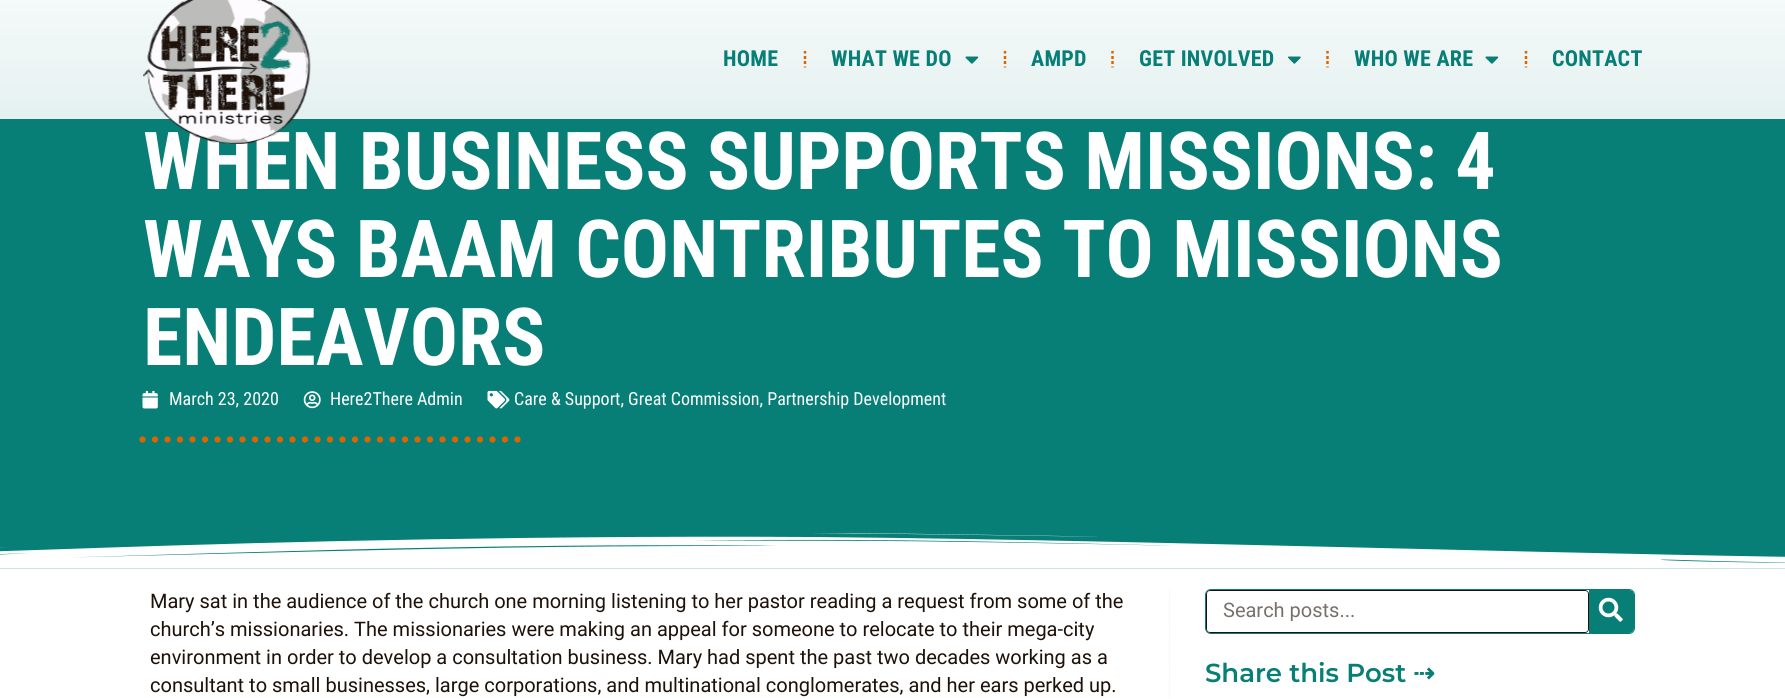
import math
import cairocffi as cairo

surface = cairo.ImageSurface(cairo.FORMAT_RGB24, 1785, 699)
ctx = cairo.Context(surface)
options = cairo.FontOptions()
options.set_hint_metrics(cairo.HINT_METRICS_OFF)
options.set_hint_style(cairo.HINT_STYLE_NONE)
ctx.set_font_options(options)
ctx.set_miter_limit(4)


def rgb(r, g, b):
    ctx.set_source_rgb(r / 255, g / 255, b / 255)


def face(family, size, italic, bold):
    ctx.select_font_face(family, cairo.FONT_SLANT_ITALIC if italic else cairo.FONT_SLANT_NORMAL, cairo.FONT_WEIGHT_BOLD if bold else cairo.FONT_WEIGHT_NORMAL)
    ctx.set_font_size(size)


def label(x, y, s):
    ctx.move_to(x, y)
    ctx.show_text(s)


def tracked(x, y, s, letter, word):
    ctx.move_to(x, y)
    for ch in s:
        ctx.show_text(ch)
        ctx.rel_move_to(letter + word * (ch == ' '), 0)


def rect(x, y, w, h):
    ctx.rectangle(x, y, w, h)
    ctx.fill()


def rrect(x, y, w, h, r):
    ctx.new_sub_path()
    for i, (u, v) in enumerate([(x + w - r, y + h - r), (x + r, y + h - r), (x + r, y + r), (x + w - r, y + r)]):
        ctx.arc(u, v, r, i * math.pi / 2, (i + 1) * math.pi / 2)
    ctx.close_path()


def image(path, x, y, w, h):
    ctx.save()
    ctx.set_source_surface(cairo.ImageSurface.create_from_png(path), x, y)
    ctx.rectangle(x, y, w, h)
    ctx.fill()
    ctx.restore()


rgb(255, 255, 255)
ctx.paint()
rgb(7, 126, 118)
rect(0, 0, 1785, 569)
gradient = cairo.LinearGradient(893, 0, 893, 119)
gradient.add_color_stop_rgba(0, 1, 1, 1, 0.96)
gradient.add_color_stop_rgba(1, 1, 1, 1, 0.89)
ctx.set_source(gradient)
rect(0, 0, 1785, 119)
face('Roboto Condensed', 80, 0, 1)
rgb(255, 255, 255)
label(143, 189, 'WHEN BUSINESS SUPPORTS MISSIONS: 4')
image('image0.png', 143, 0, 168, 144)
face('Roboto Condensed', 22, 0, 1)
rgb(7, 126, 118)
tracked(723, 66, 'HOME', 0.25, 0)
ctx.new_path()
ctx.move_to(805, 51)
ctx.line_to(805, 53.5)
ctx.move_to(805, 56)
ctx.line_to(805, 59)
ctx.move_to(805, 61)
ctx.line_to(805, 64)
ctx.move_to(805, 66.5)
ctx.line_to(805, 67.5)
rgb(219, 102, 0)
ctx.set_line_width(2.5)
ctx.stroke()
rgb(7, 126, 118)
tracked(831, 66, 'WHAT WE DO', 0.25, 0)
image('image1.png', 965, 56, 14, 8)
ctx.new_path()
ctx.move_to(1005, 51)
ctx.line_to(1005, 53.5)
ctx.move_to(1005, 56)
ctx.line_to(1005, 59)
ctx.move_to(1005, 61)
ctx.line_to(1005, 64)
ctx.move_to(1005, 66.5)
ctx.line_to(1005, 67.5)
rgb(219, 102, 0)
ctx.stroke()
rgb(7, 126, 118)
tracked(1031, 66, 'AMPD', 0.25, 0)
ctx.new_path()
ctx.move_to(1112.5, 51)
ctx.line_to(1112.5, 53.5)
ctx.move_to(1112.5, 56)
ctx.line_to(1112.5, 59)
ctx.move_to(1112.5, 61)
ctx.line_to(1112.5, 64)
ctx.move_to(1112.5, 66.5)
ctx.line_to(1112.5, 67.5)
rgb(219, 102, 0)
ctx.stroke()
rgb(7, 126, 118)
tracked(1139, 66, 'GET INVOLVED', 0.25, 0)
image('image2.png', 1288, 56, 13, 8)
ctx.new_path()
ctx.move_to(1327.5, 51)
ctx.line_to(1327.5, 53.5)
ctx.move_to(1327.5, 56)
ctx.line_to(1327.5, 59)
ctx.move_to(1327.5, 61)
ctx.line_to(1327.5, 64)
ctx.move_to(1327.5, 66.5)
ctx.line_to(1327.5, 67.5)
rgb(219, 102, 0)
ctx.stroke()
rgb(7, 126, 118)
tracked(1354, 66, 'WHO WE ARE', 0.25, 0)
image('image1.png', 1485, 56, 14, 8)
ctx.new_path()
ctx.move_to(1526, 51)
ctx.line_to(1526, 53.5)
ctx.move_to(1526, 56)
ctx.line_to(1526, 59)
ctx.move_to(1526, 61)
ctx.line_to(1526, 64)
ctx.move_to(1526, 66.5)
ctx.line_to(1526, 67.5)
rgb(219, 102, 0)
ctx.stroke()
rgb(7, 126, 118)
tracked(1552, 66, 'CONTACT', 0.25, 0)
face('Roboto Condensed', 80, 0, 1)
rgb(255, 255, 255)
label(143, 277, 'WAYS BAAM CONTRIBUTES TO MISSIONS')
label(143, 365, 'ENDEAVORS')
image('image3.png', 142, 390, 16, 19)
face('Roboto Condensed', 18, 0, 0)
label(169, 405, 'March 23, 2020')
image('image4.png', 303, 391, 18, 18)
label(330, 405, 'Here2There Admin')
image('image5.png', 487, 390, 23, 19)
label(514, 405, 'Care & Support, Great Commission, Partnership Development')
ctx.new_path()
ctx.move_to(142.5, 439.5)
ctx.line_to(517.5, 439.5)
rgb(219, 102, 0)
ctx.set_line_width(6.2)
ctx.set_line_cap(cairo.LINE_CAP_ROUND)
ctx.set_dash([0, 12.5])
ctx.stroke()
image('image6.png', 0, 533, 1785, 36)
ctx.new_path()
ctx.move_to(1169.5, 589)
ctx.line_to(1169.5, 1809)
rgb(245, 244, 244)
ctx.set_line_width(1.2)
ctx.set_line_cap(cairo.LINE_CAP_BUTT)
ctx.set_dash([1.25, 1.25])
ctx.stroke()
face('Roboto', 20, 0, 0)
rgb(30, 17, 9)
label(150, 608, 'Mary sat in the audience of the church one morning listening to her pastor reading a request from some of the')
label(150, 636, 'church’s missionaries. The missionaries were making an appeal for someone to relocate to their mega-city')
label(150, 664, 'environment in order to develop a consultation business. Mary had spent the past two decades working as a')
label(150, 692, 'consultant to small businesses, large corporations, and multinational conglomerates, and her ears perked up.')
rrect(1205.5, 589.5, 429, 44, 5.5)
rgb(7, 126, 118)
ctx.set_line_width(1)
ctx.set_dash([])
ctx.stroke()
rgb(30, 17, 9)
ctx.set_fill_rule(cairo.FILL_RULE_EVEN_ODD)
ctx.new_path()
ctx.move_to(1211, 590)
ctx.curve_to(1208, 590, 1206, 592, 1206, 595)
ctx.line_to(1206, 628)
ctx.curve_to(1206, 631, 1208, 633, 1211, 633)
ctx.line_to(1585, 633)
ctx.curve_to(1587, 633, 1589, 631, 1589, 629)
ctx.line_to(1589, 594)
ctx.curve_to(1589, 592, 1587, 590, 1585, 590)
ctx.close_path()
ctx.move_to(1210, 591)
ctx.curve_to(1208, 591, 1207, 592, 1207, 594)
ctx.line_to(1207, 629)
ctx.curve_to(1207, 631, 1208, 632, 1210, 632)
ctx.line_to(1585, 632)
ctx.curve_to(1587, 632, 1588, 631, 1588, 629)
ctx.line_to(1588, 594)
ctx.curve_to(1588, 592, 1587, 591, 1585, 591)
ctx.close_path()
ctx.fill()
rgb(120, 112, 107)
label(1223, 617, 'Search posts...')
rgb(7, 126, 118)
ctx.new_path()
ctx.move_to(1589, 590)
ctx.line_to(1629, 590)
ctx.curve_to(1632, 590, 1634, 592, 1634, 595)
ctx.line_to(1634, 628)
ctx.curve_to(1634, 631, 1632, 633, 1629, 633)
ctx.line_to(1589, 633)
ctx.close_path()
ctx.fill()
image('image7.png', 1598, 597, 25, 25)
face('Montserrat SemiBold', 26, 0, 0)
label(1205, 682, 'Share this Post')
face('DejaVu Sans', 26, 0, 1)
label(1413, 682, '⇢')
surface.write_to_png('render.png')
